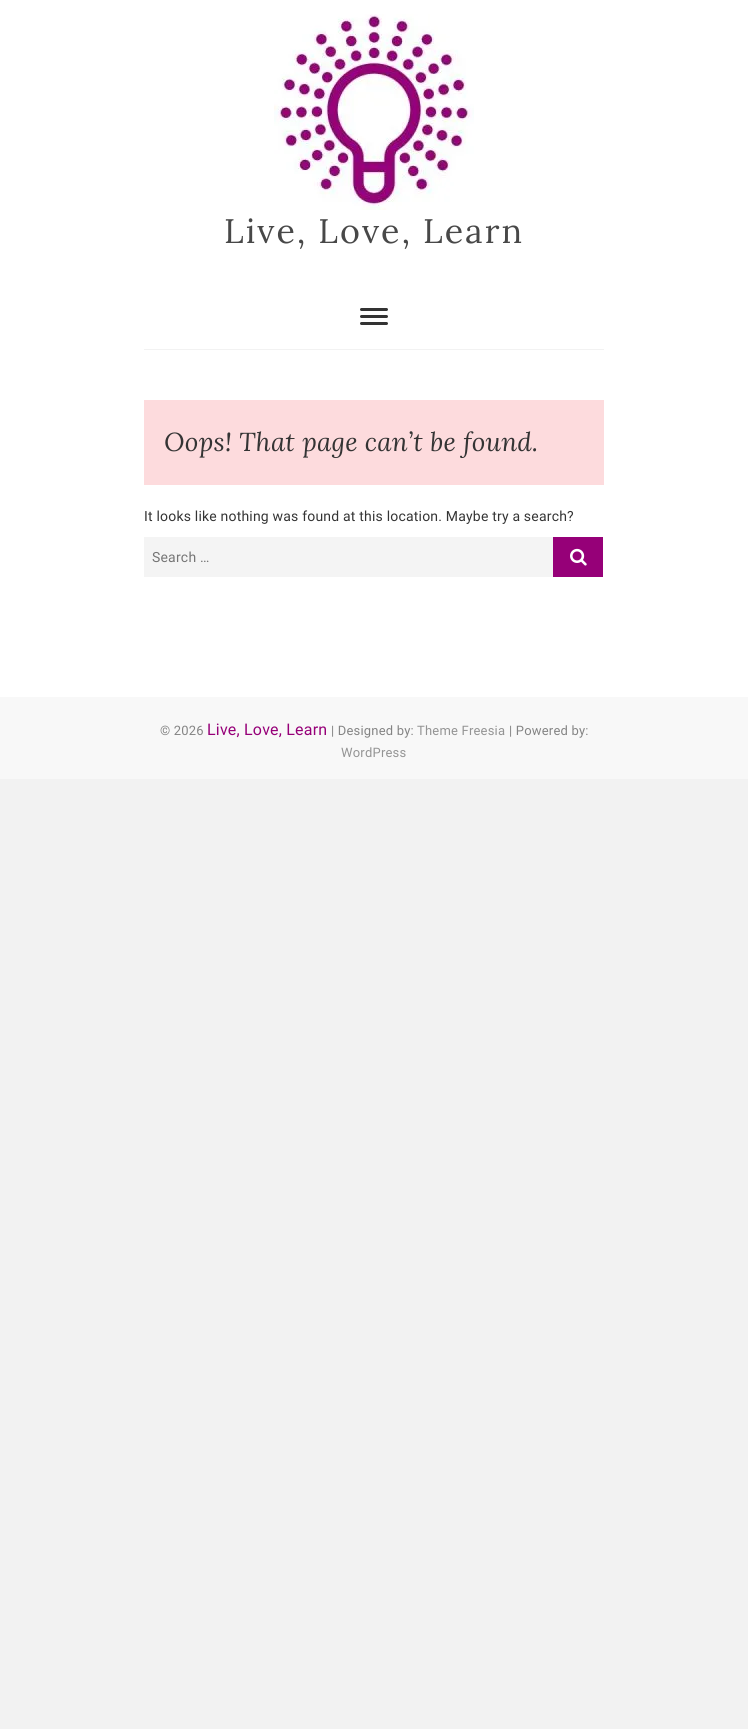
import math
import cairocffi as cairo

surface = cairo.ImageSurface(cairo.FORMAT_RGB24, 748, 1729)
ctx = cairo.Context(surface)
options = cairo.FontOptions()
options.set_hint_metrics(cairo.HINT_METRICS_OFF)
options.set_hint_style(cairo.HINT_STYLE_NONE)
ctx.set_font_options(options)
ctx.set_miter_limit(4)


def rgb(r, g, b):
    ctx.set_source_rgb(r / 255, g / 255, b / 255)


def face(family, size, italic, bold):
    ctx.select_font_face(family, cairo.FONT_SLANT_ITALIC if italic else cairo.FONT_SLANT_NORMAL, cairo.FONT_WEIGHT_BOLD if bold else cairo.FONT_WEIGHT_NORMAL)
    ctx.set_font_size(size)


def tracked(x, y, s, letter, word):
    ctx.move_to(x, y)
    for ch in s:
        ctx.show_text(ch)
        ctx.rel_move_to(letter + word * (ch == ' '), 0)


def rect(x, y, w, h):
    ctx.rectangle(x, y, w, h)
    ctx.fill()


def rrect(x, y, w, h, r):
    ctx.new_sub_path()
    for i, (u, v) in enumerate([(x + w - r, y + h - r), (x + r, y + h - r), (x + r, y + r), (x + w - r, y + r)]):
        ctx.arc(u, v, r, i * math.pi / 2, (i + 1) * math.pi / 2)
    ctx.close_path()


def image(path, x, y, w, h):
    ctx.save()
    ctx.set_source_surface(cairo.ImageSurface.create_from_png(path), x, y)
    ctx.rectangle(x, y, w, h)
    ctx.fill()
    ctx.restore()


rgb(242, 242, 242)
ctx.paint()
rgb(255, 255, 255)
rect(0, 0, 748, 697)
image('image0.png', 274, 14, 200, 196)
face('Lora', 34, 0, 0)
rgb(72, 72, 72)
tracked(224, 243, 'Live, Love, Learn', 2, 0)
rgb(242, 242, 242)
rect(144, 349, 460, 1)
rgb(51, 51, 51)
rrect(360, 308, 28, 3, 1.5)
ctx.fill()
rrect(360, 315, 28, 3, 1.5)
ctx.fill()
rrect(360, 322, 28, 3, 1.5)
ctx.fill()
rgb(253, 219, 221)
rect(144, 400, 460, 85)
face('Lora', 26, 1, 0)
rgb(52, 52, 52)
tracked(164, 451, 'Oops! That page can’t be found.', 0.2, 0)
face('Roboto', 14, 0, 0)
tracked(144, 521, 'It looks like nothing was found at this location. Maybe try a search?', 0.2, 0)
rgb(244, 244, 244)
rect(144, 537, 409, 40)
rgb(117, 117, 117)
tracked(152, 562, 'Search …', 0.2, 0)
rgb(150, 0, 120)
rect(553, 537, 50, 40)
image('image1.png', 570, 548, 17, 18)
rgb(248, 248, 248)
rect(0, 697, 748, 82)
face('Roboto', 13, 0, 0)
rgb(132, 132, 132)
tracked(160, 735, '© 2026', 0.2, 0)
face('Roboto', 16, 0, 0)
rgb(150, 0, 120)
tracked(207, 735, 'Live, Love, Learn', 0.2, 0)
face('Roboto', 13, 0, 0)
rgb(132, 132, 132)
tracked(331, 735, '| Designed by:', 0.2, 0)
rgb(148, 148, 148)
tracked(417, 735, 'Theme Freesia', 0.2, 0)
rgb(132, 132, 132)
tracked(509, 735, '| Powered by:', 0.2, 0)
rgb(148, 148, 148)
tracked(341, 757, 'WordPress', 0.2, 0)
surface.write_to_png('render.png')
